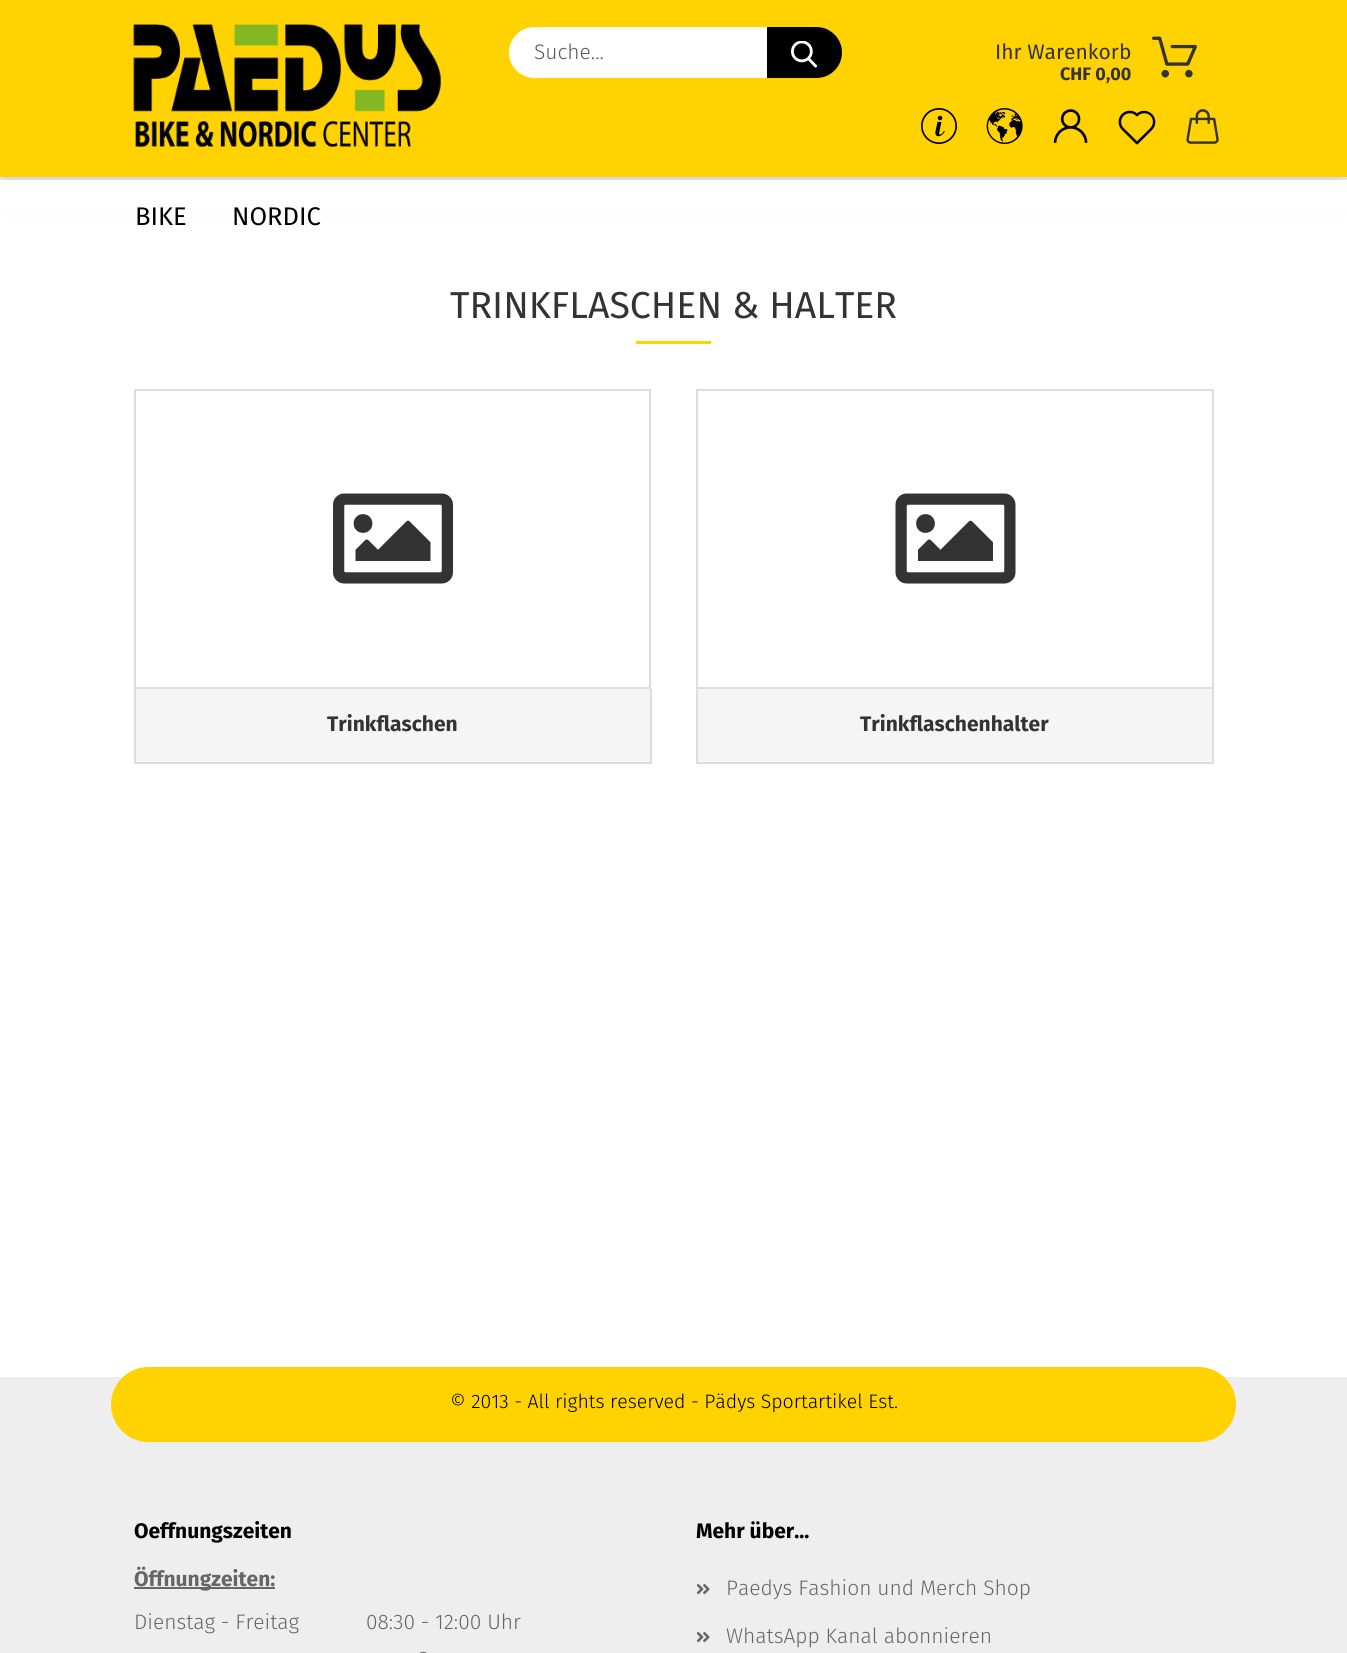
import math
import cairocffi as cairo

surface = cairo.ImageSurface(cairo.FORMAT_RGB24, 1347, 1653)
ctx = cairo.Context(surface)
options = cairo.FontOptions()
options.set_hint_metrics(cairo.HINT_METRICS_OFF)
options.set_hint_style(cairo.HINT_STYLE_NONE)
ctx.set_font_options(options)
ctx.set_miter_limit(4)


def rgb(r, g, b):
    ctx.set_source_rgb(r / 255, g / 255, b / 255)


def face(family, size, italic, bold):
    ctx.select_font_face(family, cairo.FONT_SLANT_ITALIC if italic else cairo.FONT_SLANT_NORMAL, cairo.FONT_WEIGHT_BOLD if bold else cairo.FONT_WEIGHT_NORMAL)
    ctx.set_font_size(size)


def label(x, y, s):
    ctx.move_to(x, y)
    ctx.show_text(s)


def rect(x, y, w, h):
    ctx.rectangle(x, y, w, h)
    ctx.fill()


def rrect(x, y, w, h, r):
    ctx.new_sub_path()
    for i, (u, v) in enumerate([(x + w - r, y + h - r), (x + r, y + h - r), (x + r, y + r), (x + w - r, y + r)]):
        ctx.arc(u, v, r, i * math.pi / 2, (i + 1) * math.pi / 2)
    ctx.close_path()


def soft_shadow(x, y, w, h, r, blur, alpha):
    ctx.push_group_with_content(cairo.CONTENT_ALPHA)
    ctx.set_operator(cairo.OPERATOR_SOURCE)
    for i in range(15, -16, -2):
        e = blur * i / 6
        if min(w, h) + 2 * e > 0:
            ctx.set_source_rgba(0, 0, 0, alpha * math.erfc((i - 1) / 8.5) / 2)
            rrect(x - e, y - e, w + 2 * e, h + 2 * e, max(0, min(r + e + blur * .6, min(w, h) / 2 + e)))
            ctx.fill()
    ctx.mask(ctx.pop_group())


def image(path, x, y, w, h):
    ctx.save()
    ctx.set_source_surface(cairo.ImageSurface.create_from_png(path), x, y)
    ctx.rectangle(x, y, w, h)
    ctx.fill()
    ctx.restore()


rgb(255, 255, 255)
ctx.paint()
rgb(0, 0, 0)
soft_shadow(0, 0, 1347, 177, 0, 19, 0.3)
rgb(255, 210, 0)
rect(0, 0, 1347, 177)
image('image0.png', 133, 24, 308, 123)
rgb(255, 255, 255)
rrect(510.5, 28.5, 327, 48, 24)
ctx.fill_preserve()
ctx.set_line_width(3)
ctx.stroke()
face('Fira Sans Light', 21, 0, 0)
rgb(89, 89, 89)
label(534, 59, 'Suche...')
rgb(0, 0, 0)
ctx.new_path()
ctx.move_to(767, 27)
ctx.line_to(816.5, 27)
ctx.curve_to(830.5, 27, 842, 38.5, 842, 52.5)
ctx.curve_to(842, 66.5, 830.5, 78, 816.5, 78)
ctx.line_to(767, 78)
ctx.close_path()
ctx.fill()
image('image1.png', 791, 41, 26, 27)
face('Fira Sans', 21, 0, 0)
rgb(51, 51, 51)
label(995, 59, 'Ihr Warenkorb')
face('Fira Sans', 18, 0, 1)
label(1060, 80, 'CHF 0,00')
image('image2.png', 1152, 36, 45, 42)
image('image3.png', 921, 108, 36, 36)
image('image4.png', 986, 108, 37, 37)
image('image5.png', 1053, 109, 35, 34)
image('image6.png', 1118, 110, 38, 35)
image('image7.png', 1186, 109, 33, 35)
rgb(255, 255, 255)
rect(0, 180, 1347, 32)
face('Fira Sans', 25.5, 0, 0)
rgb(0, 0, 0)
label(135, 225, 'BIKE')
label(232, 225, 'NORDIC')
face('Fira Sans', 37.5, 0, 0)
rgb(51, 51, 51)
label(450, 318, 'TRINKFLASCHEN & HALTER')
rgb(255, 210, 0)
rect(636, 341, 75, 3)
ctx.rectangle(135, 390, 515, 298)
rgb(221, 221, 221)
ctx.set_line_width(2)
ctx.stroke()
image('image8.png', 333, 493, 120, 91)
rgb(245, 245, 245)
rect(136, 689, 514, 73)
rgb(221, 221, 221)
rect(650, 689, 2, 75)
rect(134, 762, 517, 2)
rect(134, 689, 2, 75)
face('Fira Sans', 21, 0, 1)
rgb(51, 51, 51)
label(327, 731, 'Trinkflaschen')
ctx.rectangle(697, 390, 516, 298)
rgb(221, 221, 221)
ctx.stroke()
image('image9.png', 895, 493, 121, 91)
rgb(245, 245, 245)
rect(698, 689, 514, 73)
rgb(221, 221, 221)
rect(1212, 689, 2, 75)
rect(696, 762, 518, 2)
rect(696, 689, 2, 75)
rgb(51, 51, 51)
label(860, 731, 'Trinkflaschenhalter')
rgb(238, 238, 238)
rect(0, 1377, 1347, 276)
rgb(255, 210, 0)
rrect(111, 1367, 1125, 75, 37.5)
ctx.fill()
face('Fira Sans Light', 19.5, 0, 0)
rgb(0, 0, 0)
label(450, 1408, '© 2013 - All rights reserved - Pädys Sportartikel Est.')
face('Fira Sans', 21, 0, 1)
label(134, 1538, 'Oeffnungszeiten')
rgb(102, 102, 102)
rect(134, 1587, 141, 2)
label(134, 1586, 'Öffnungzeiten:')
face('Fira Sans Light', 21, 0, 0)
label(134, 1629, 'Dienstag - Freitag')
label(366, 1629, '08:30 - 12:00 Uhr')
label(419, 1659, '-')
face('Fira Sans', 21, 0, 1)
rgb(0, 0, 0)
label(696, 1538, 'Mehr über...')
image('image10.png', 696, 1583, 14, 12)
face('Fira Sans Light', 21, 0, 0)
rgb(102, 102, 102)
label(726, 1595, 'Paedys Fashion und Merch Shop')
image('image10.png', 696, 1631, 14, 12)
label(726, 1643, 'WhatsApp Kanal abonnieren')
surface.write_to_png('render.png')
